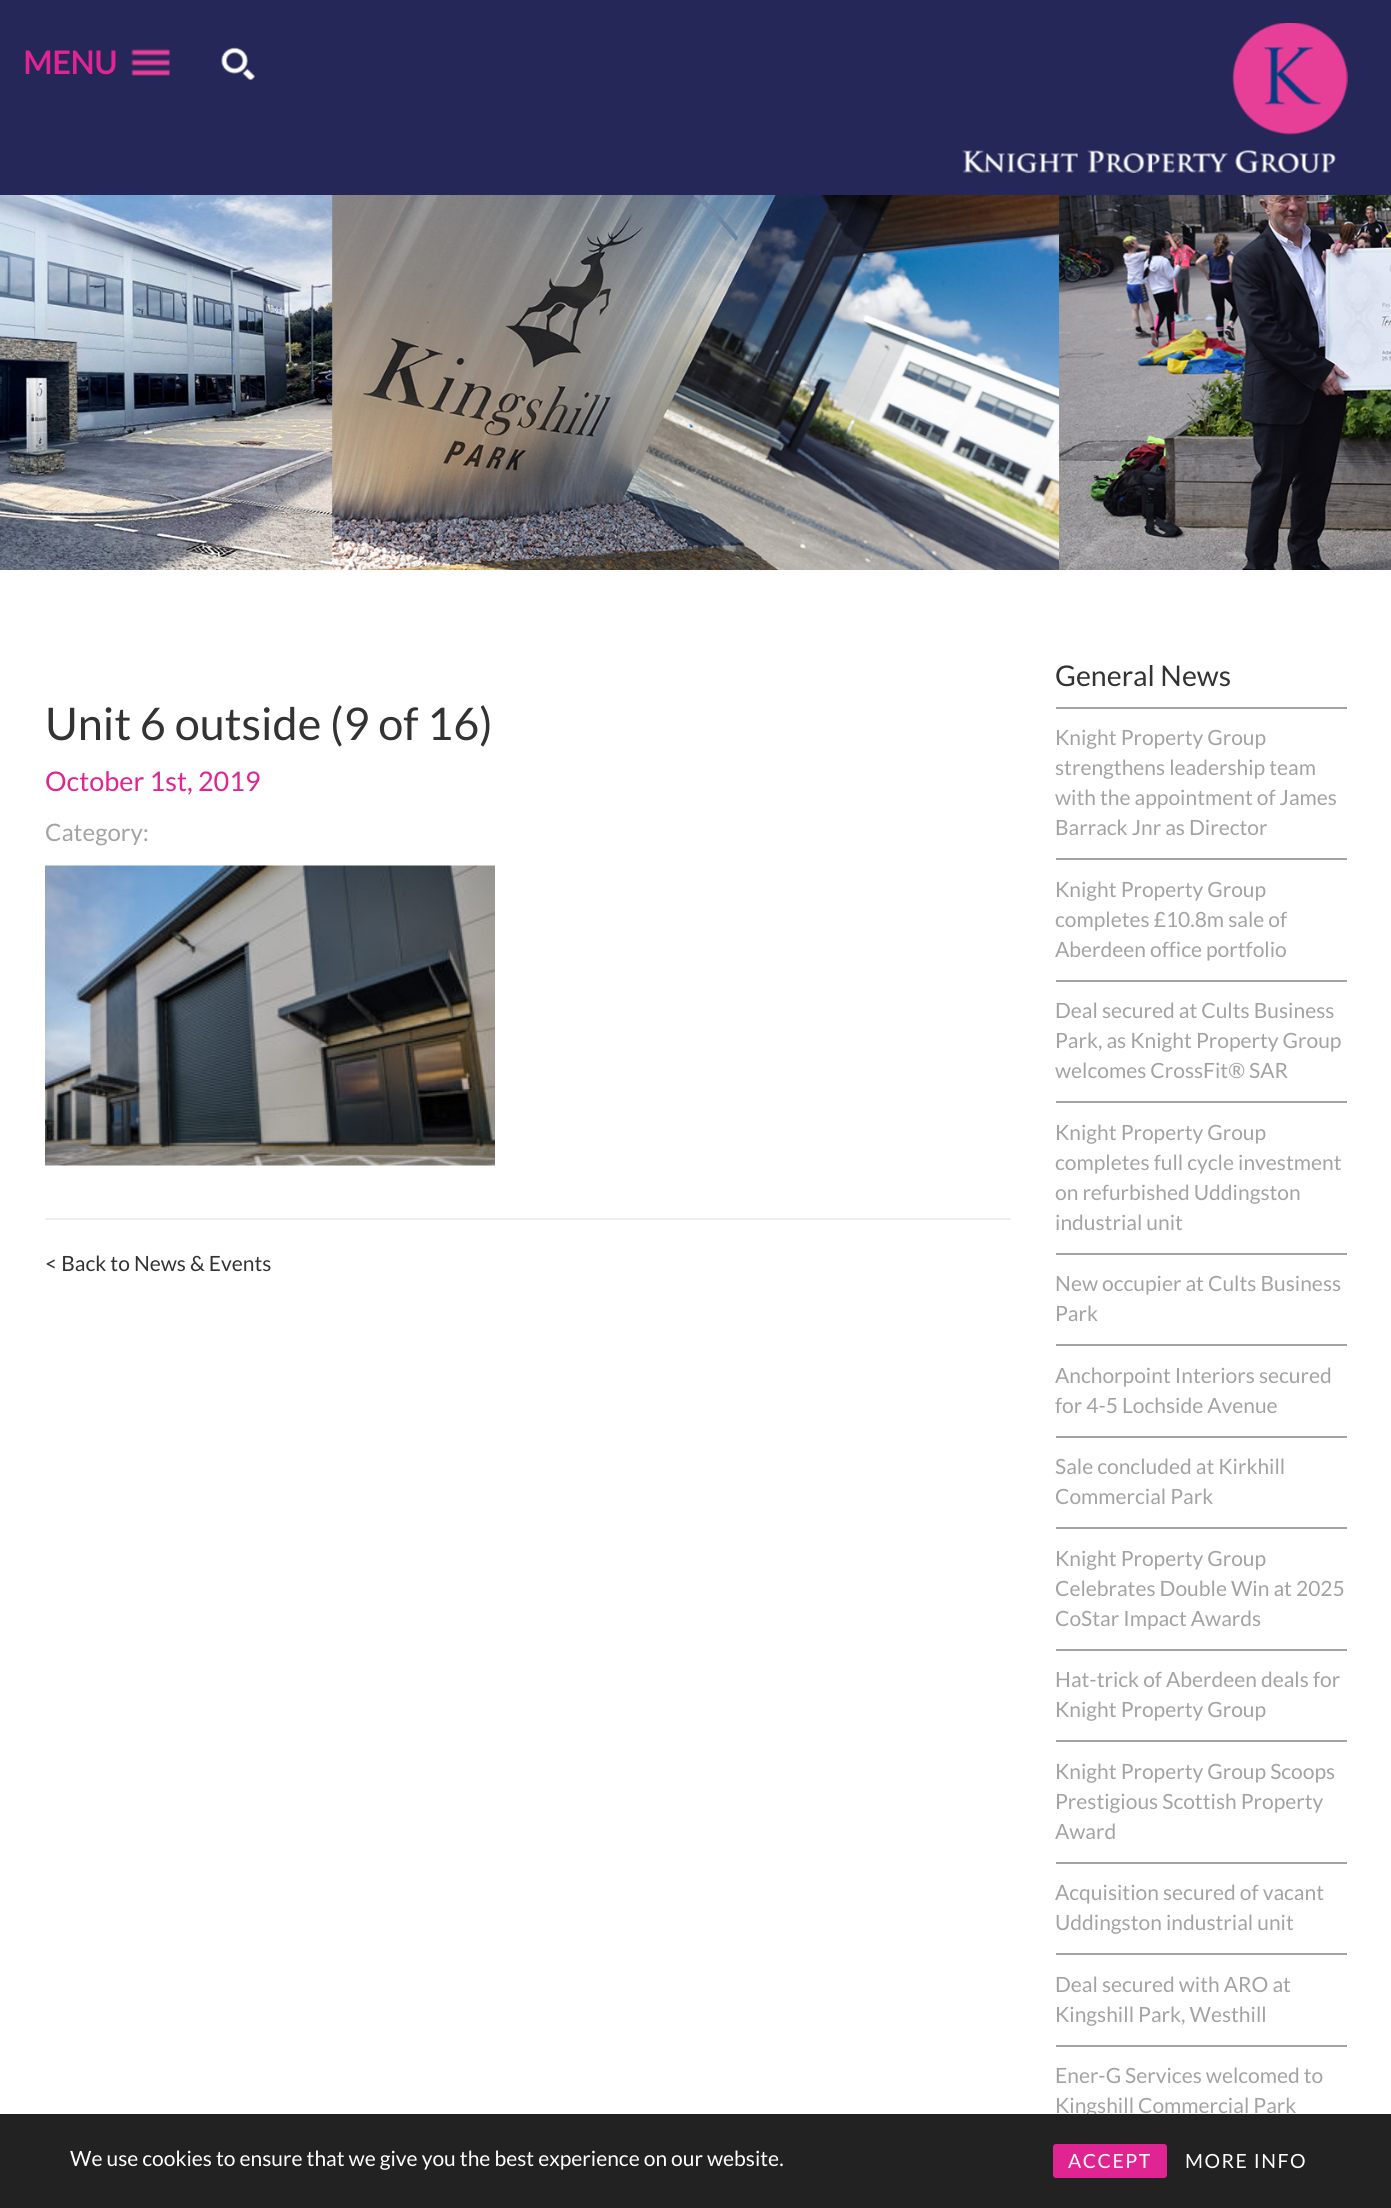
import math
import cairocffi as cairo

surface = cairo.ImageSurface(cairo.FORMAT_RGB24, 1391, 2208)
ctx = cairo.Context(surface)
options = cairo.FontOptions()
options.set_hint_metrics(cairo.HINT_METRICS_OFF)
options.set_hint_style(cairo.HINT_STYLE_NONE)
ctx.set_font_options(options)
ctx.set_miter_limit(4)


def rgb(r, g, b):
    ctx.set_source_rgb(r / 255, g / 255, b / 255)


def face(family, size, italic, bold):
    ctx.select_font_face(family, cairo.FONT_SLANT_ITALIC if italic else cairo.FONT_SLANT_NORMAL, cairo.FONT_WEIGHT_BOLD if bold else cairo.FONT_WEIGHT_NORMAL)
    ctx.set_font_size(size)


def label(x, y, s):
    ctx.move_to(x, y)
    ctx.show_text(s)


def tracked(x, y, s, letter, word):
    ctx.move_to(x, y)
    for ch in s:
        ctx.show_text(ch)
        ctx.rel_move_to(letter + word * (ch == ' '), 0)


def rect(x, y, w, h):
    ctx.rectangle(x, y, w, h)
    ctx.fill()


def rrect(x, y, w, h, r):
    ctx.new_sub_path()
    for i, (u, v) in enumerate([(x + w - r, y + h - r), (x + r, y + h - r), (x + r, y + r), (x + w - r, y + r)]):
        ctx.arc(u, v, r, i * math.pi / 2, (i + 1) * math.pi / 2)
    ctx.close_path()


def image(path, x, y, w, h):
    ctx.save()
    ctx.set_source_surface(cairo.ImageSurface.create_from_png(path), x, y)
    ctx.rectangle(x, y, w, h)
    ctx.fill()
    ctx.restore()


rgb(255, 255, 255)
ctx.paint()
rgb(37, 39, 88)
rect(0, 0, 1391, 195)
face('Lato', 31.5, 0, 1)
rgb(224, 36, 145)
label(23, 74, 'MENU')
image('image0.png', 131, 49, 39, 27)
image('image1.png', 221, 47, 34, 33)
image('image2.png', 962, 23, 386, 150)
image('image3.png', 0, 195, 1391, 375)
face('Lato', 45, 0, 0)
rgb(51, 51, 51)
label(45, 740, 'Unit 6 outside (9 of 16)')
face('Lato', 27, 0, 0)
rgb(224, 36, 145)
label(45, 791, 'October 1st, 2019')
face('Lato', 24, 0, 0)
rgb(163, 163, 163)
label(45, 841, 'Category:')
image('image4.png', 45, 865, 450, 301)
rgb(238, 238, 238)
rect(45, 1218, 966, 2)
face('Lato', 21, 0, 0)
rgb(51, 51, 51)
label(45, 1271, '< Back to News & Events')
face('Lato', 28.5, 0, 0)
label(1055, 686, 'General News')
rgb(163, 163, 163)
rect(1056, 707, 291, 2)
face('Lato', 21, 0, 0)
label(1055, 745, 'Knight Property Group')
label(1055, 775, 'strengthens leadership team')
label(1055, 805, 'with the appointment of James')
label(1055, 835, 'Barrack Jnr as Director')
rect(1056, 858, 291, 2)
label(1055, 897, 'Knight Property Group')
label(1055, 927, 'completes £10.8m sale of')
label(1055, 957, 'Aberdeen office portfolio')
rect(1056, 980, 291, 2)
label(1055, 1018, 'Deal secured at Cults Business')
label(1055, 1048, 'Park, as Knight Property Group')
label(1055, 1078, 'welcomes CrossFit® SAR')
rect(1056, 1101, 291, 2)
label(1055, 1140, 'Knight Property Group')
label(1055, 1170, 'completes full cycle investment')
label(1055, 1200, 'on refurbished Uddingston')
label(1055, 1230, 'industrial unit')
rect(1056, 1253, 291, 2)
label(1055, 1291, 'New occupier at Cults Business')
label(1055, 1321, 'Park')
rect(1056, 1344, 291, 2)
label(1055, 1383, 'Anchorpoint Interiors secured')
label(1055, 1413, 'for 4-5 Lochside Avenue')
rect(1056, 1436, 291, 2)
label(1055, 1474, 'Sale concluded at Kirkhill')
label(1055, 1504, 'Commercial Park')
rect(1056, 1527, 291, 2)
label(1055, 1566, 'Knight Property Group')
label(1055, 1596, 'Celebrates Double Win at 2025')
label(1055, 1626, 'CoStar Impact Awards')
rect(1056, 1649, 291, 2)
label(1055, 1687, 'Hat-trick of Aberdeen deals for')
label(1055, 1717, 'Knight Property Group')
rect(1056, 1740, 291, 2)
label(1055, 1779, 'Knight Property Group Scoops')
label(1055, 1809, 'Prestigious Scottish Property')
label(1055, 1839, 'Award')
rect(1056, 1862, 291, 2)
label(1055, 1900, 'Acquisition secured of vacant')
label(1055, 1930, 'Uddingston industrial unit')
rect(1056, 1953, 291, 2)
label(1055, 1992, 'Deal secured with ARO at')
label(1055, 2022, 'Kingshill Park, Westhill')
rect(1056, 2045, 291, 2)
label(1055, 2083, 'Ener-G Services welcomed to')
label(1055, 2113, 'Kingshill Commercial Park')
rgb(34, 34, 34)
rect(0, 2114, 1391, 94)
rgb(255, 255, 255)
label(70, 2166, 'We use cookies to ensure that we give you the best experience on our website.')
rgb(224, 36, 145)
rrect(1053, 2144, 114, 34, 3)
ctx.fill()
face('Lato', 19.5, 0, 0)
rgb(255, 255, 255)
tracked(1068, 2168, 'ACCEPT', 1.5, 0)
tracked(1185, 2168, 'MORE INFO', 1.5, 0)
surface.write_to_png('render.png')
